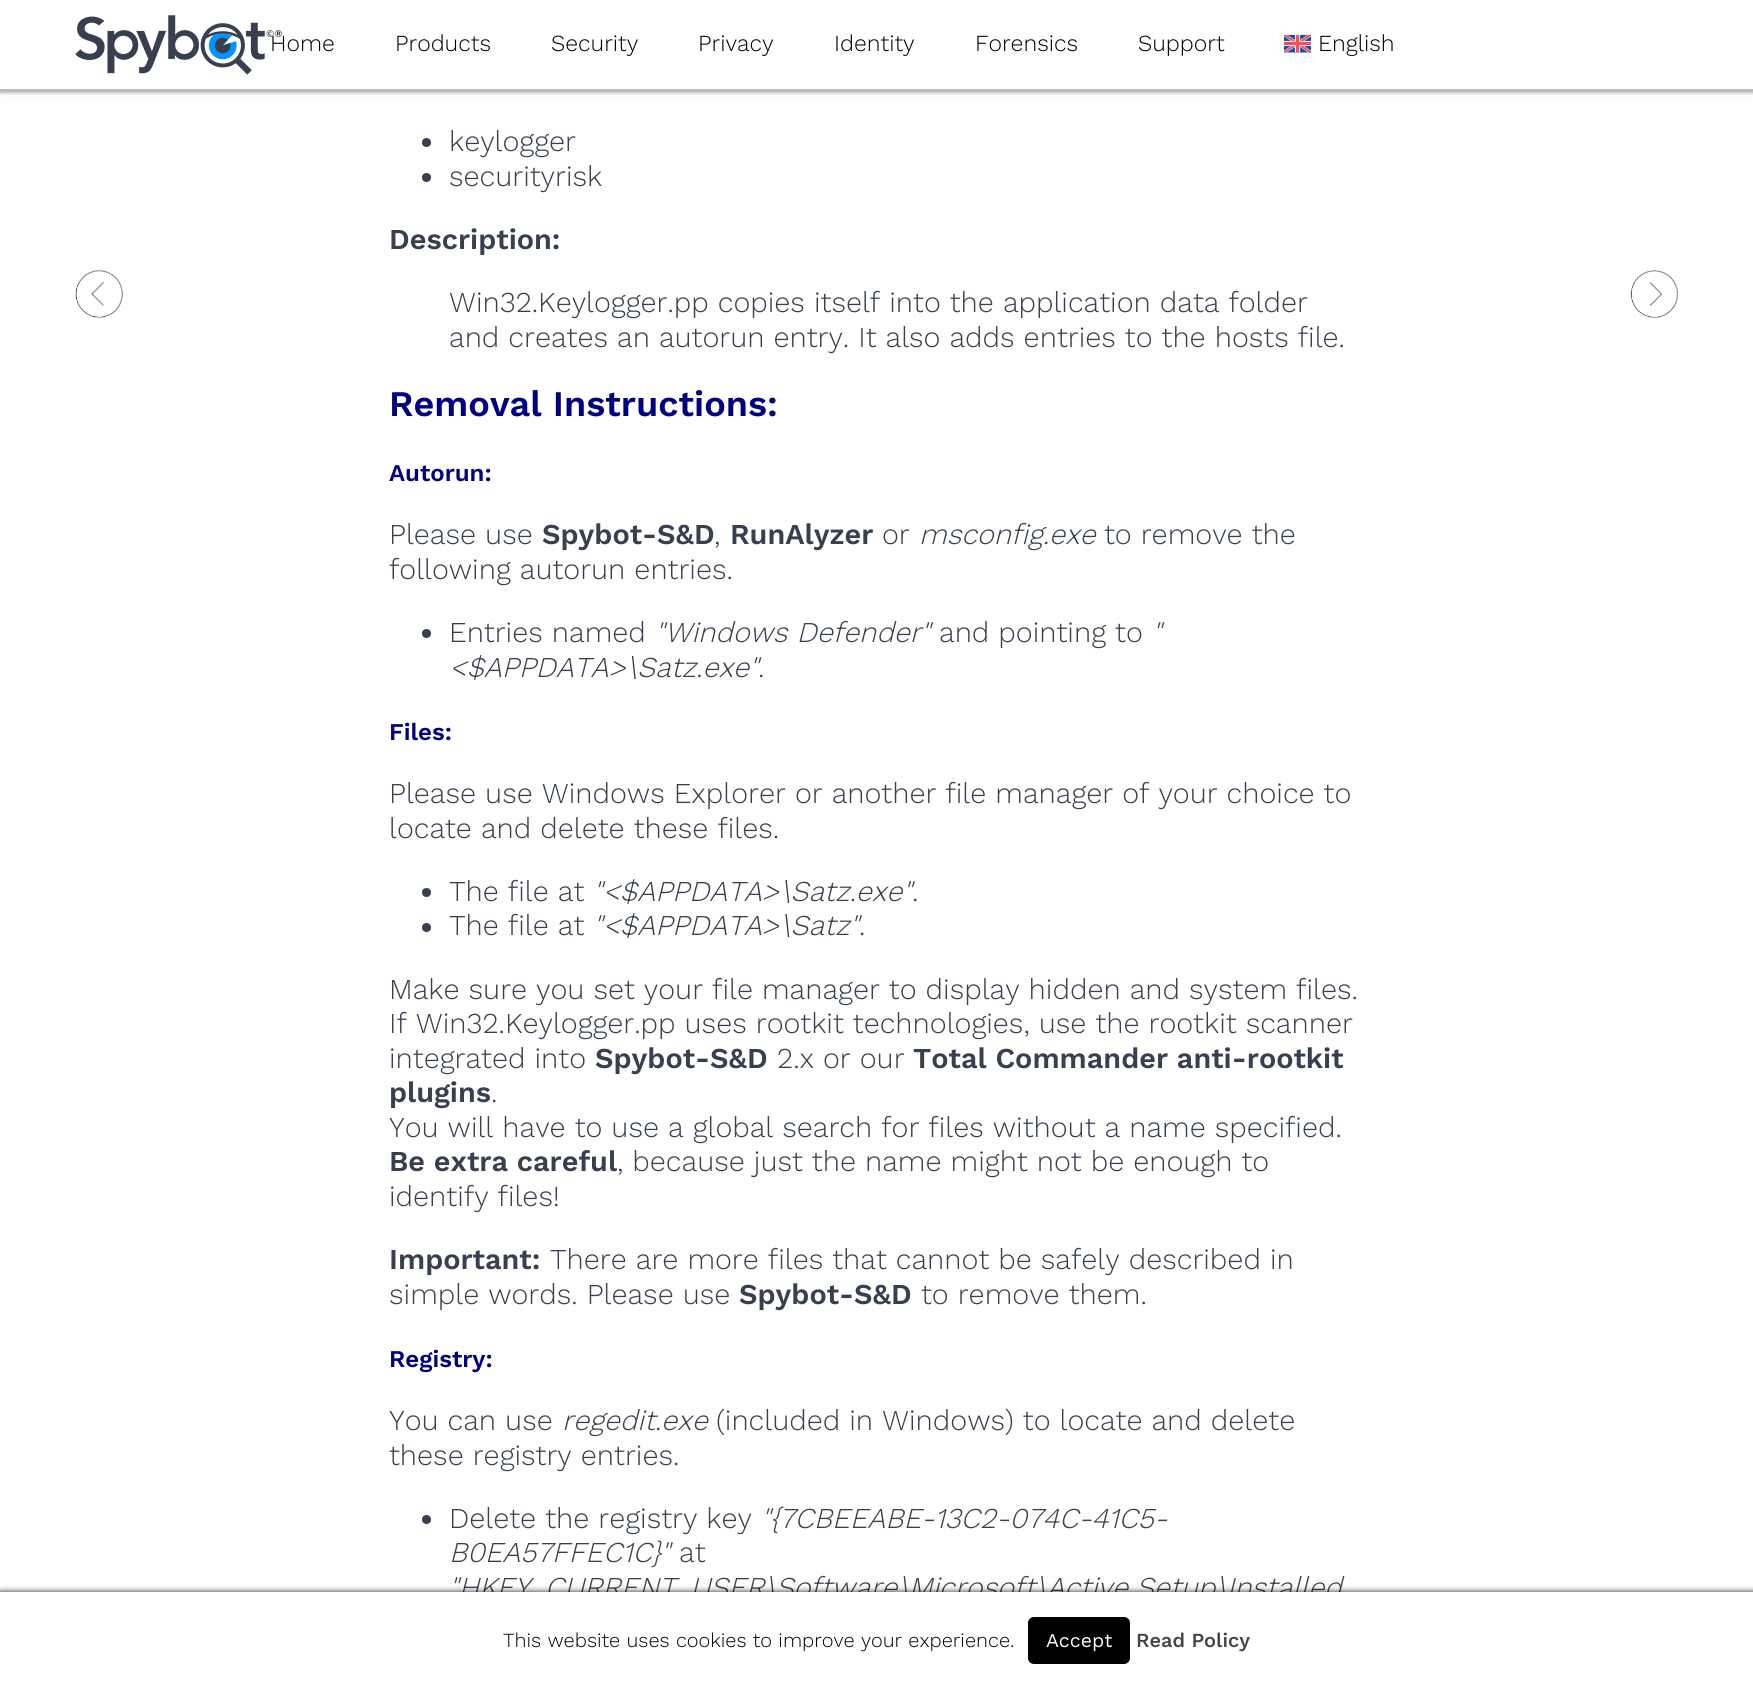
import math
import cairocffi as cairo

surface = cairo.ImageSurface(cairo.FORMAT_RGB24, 1753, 1681)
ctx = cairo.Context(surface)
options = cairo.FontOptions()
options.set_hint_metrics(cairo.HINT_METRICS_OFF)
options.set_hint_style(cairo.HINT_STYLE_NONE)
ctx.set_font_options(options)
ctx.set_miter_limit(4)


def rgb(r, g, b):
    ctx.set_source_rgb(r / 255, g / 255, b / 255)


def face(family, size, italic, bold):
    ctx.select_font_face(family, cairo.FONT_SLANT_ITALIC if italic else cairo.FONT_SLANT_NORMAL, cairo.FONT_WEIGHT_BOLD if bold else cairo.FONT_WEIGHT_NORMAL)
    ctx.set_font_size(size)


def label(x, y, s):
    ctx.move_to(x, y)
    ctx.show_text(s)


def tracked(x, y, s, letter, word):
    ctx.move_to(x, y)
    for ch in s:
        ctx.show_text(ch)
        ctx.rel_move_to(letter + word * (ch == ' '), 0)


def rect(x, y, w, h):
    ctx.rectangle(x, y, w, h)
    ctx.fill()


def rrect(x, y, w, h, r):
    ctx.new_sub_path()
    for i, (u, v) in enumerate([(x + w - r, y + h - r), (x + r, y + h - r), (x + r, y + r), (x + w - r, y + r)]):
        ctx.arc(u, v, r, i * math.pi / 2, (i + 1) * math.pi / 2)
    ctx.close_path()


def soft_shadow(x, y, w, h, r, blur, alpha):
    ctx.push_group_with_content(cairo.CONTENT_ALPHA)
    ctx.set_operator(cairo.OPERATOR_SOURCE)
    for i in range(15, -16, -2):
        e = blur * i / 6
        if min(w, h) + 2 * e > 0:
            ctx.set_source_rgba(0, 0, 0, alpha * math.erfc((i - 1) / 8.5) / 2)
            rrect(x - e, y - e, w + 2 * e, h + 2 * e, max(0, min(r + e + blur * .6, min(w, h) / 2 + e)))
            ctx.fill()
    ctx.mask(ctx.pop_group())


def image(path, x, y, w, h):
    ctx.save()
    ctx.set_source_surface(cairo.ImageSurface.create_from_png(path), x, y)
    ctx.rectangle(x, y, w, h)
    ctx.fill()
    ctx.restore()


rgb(255, 255, 255)
ctx.paint()
rgb(0, 0, 0)
soft_shadow(0, 0, 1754, 90, 0, 3, 0.86)
rgb(255, 255, 255)
rect(0, 0, 1753, 89)
face('Work Sans Light', 23, 0, 0)
rgb(0, 0, 0)
label(270, 51, 'Home')
image('image0.png', 75, 15, 207, 60)
rgb(188, 188, 188)
rect(0, 89, 1753, 2)
rgb(0, 0, 0)
label(395, 51, 'Products')
label(551, 51, 'Security')
label(698, 51, 'Privacy')
label(834, 51, 'Identity')
label(975, 51, 'Forensics')
label(1138, 51, 'Support')
image('image1.png', 1284, 35, 27, 18)
label(1318, 51, 'English')
rgb(56, 64, 79)
ctx.new_path()
ctx.arc(426.5, 142.5, 4.5, 0, 2 * math.pi)
ctx.fill()
face('Work Sans Light', 28.8, 0, 0)
label(449, 151, 'keylogger')
ctx.new_path()
ctx.arc(426.5, 177.5, 4.5, 0, 2 * math.pi)
ctx.fill()
label(449, 186, 'securityrisk')
face('Work Sans SemiBold', 28.8, 0, 0)
label(389, 249, 'Description:')
face('Work Sans Light', 28.8, 0, 0)
label(449, 312, 'Win32.Keylogger.pp copies itself into the application data folder')
label(449, 347, 'and creates an autorun entry. It also adds entries to the hosts file.')
face('Work Sans SemiBold', 36, 0, 0)
rgb(0, 0, 128)
label(389, 416, 'Removal Instructions:')
face('Work Sans SemiBold', 24, 0, 0)
label(389, 481, 'Autorun:')
face('Work Sans Light', 28.8, 0, 0)
rgb(56, 64, 79)
label(389, 544, 'Please use')
face('Work Sans SemiBold', 28.8, 0, 0)
label(542, 544, 'Spybot-S&D')
face('Work Sans Light', 28.8, 0, 0)
label(714, 544, ',')
face('Work Sans SemiBold', 28.8, 0, 0)
label(730, 544, 'RunAlyzer')
face('Work Sans Light', 28.8, 0, 0)
label(882, 544, 'or')
face('Work Sans Light', 28.8, 1, 0)
label(919, 544, 'msconfig.exe')
face('Work Sans Light', 28.8, 0, 0)
label(1104, 544, 'to remove the')
label(389, 579, 'following autorun entries.')
label(449, 642, 'Entries named')
face('Work Sans Light', 28.8, 1, 0)
label(655, 642, '"Windows Defender"')
face('Work Sans Light', 28.8, 0, 0)
label(939, 642, 'and pointing to')
face('Work Sans Light', 28.8, 1, 0)
label(1152, 642, '"')
ctx.new_path()
ctx.arc(426.5, 633.5, 4.5, 0, 2 * math.pi)
ctx.fill()
label(449, 677, '<$APPDATA>\\Satz.exe"')
face('Work Sans Light', 28.8, 0, 0)
label(758, 677, '.')
face('Work Sans SemiBold', 24, 0, 0)
rgb(0, 0, 128)
label(389, 740, 'Files:')
face('Work Sans Light', 28.8, 0, 0)
rgb(56, 64, 79)
label(389, 803, 'Please use Windows Explorer or another file manager of your choice to')
label(389, 838, 'locate and delete these files.')
ctx.new_path()
ctx.arc(426.5, 892.5, 4.5, 0, 2 * math.pi)
ctx.fill()
label(449, 901, 'The file at')
face('Work Sans Light', 28.8, 1, 0)
label(593, 901, '"<$APPDATA>\\Satz.exe"')
face('Work Sans Light', 28.8, 0, 0)
label(912, 901, '.')
ctx.new_path()
ctx.arc(426.5, 927.5, 4.5, 0, 2 * math.pi)
ctx.fill()
label(449, 935, 'The file at')
face('Work Sans Light', 28.8, 1, 0)
label(593, 935, '"<$APPDATA>\\Satz"')
face('Work Sans Light', 28.8, 0, 0)
label(859, 935, '.')
label(389, 999, 'Make sure you set your file manager to display hidden and system files.')
label(389, 1033, 'If Win32.Keylogger.pp uses rootkit technologies, use the rootkit scanner')
label(389, 1068, 'integrated into')
face('Work Sans SemiBold', 28.8, 0, 0)
label(595, 1068, 'Spybot-S&D')
face('Work Sans Light', 28.8, 0, 0)
label(777, 1068, '2.x or our')
face('Work Sans SemiBold', 28.8, 0, 0)
label(913, 1068, 'Total Commander anti-rootkit')
label(389, 1102, 'plugins')
face('Work Sans Light', 28.8, 0, 0)
label(491, 1102, '.')
label(389, 1137, 'You will have to use a global search for files without a name specified.')
face('Work Sans SemiBold', 28.8, 0, 0)
label(389, 1171, 'Be extra careful')
face('Work Sans Light', 28.8, 0, 0)
label(617, 1171, ', because just the name might not be enough to')
label(389, 1206, 'identify files!')
face('Work Sans SemiBold', 28.8, 0, 0)
label(389, 1269, 'Important:')
face('Work Sans Light', 28.8, 0, 0)
label(550, 1269, 'There are more files that cannot be safely described in')
label(389, 1304, 'simple words. Please use')
face('Work Sans SemiBold', 28.8, 0, 0)
label(739, 1304, 'Spybot-S&D')
face('Work Sans Light', 28.8, 0, 0)
label(921, 1304, 'to remove them.')
face('Work Sans SemiBold', 24, 0, 0)
rgb(0, 0, 128)
label(389, 1367, 'Registry:')
face('Work Sans Light', 28.8, 0, 0)
rgb(56, 64, 79)
label(389, 1430, 'You can use')
face('Work Sans Light', 28.8, 1, 0)
label(562, 1430, 'regedit.exe')
face('Work Sans Light', 28.8, 0, 0)
label(716, 1430, '(included in Windows) to locate and delete')
label(389, 1465, 'these registry entries.')
ctx.new_path()
ctx.arc(426.5, 1519.5, 4.5, 0, 2 * math.pi)
ctx.fill()
label(449, 1528, 'Delete the registry key')
face('Work Sans Light', 28.8, 1, 0)
label(761, 1528, '"{7CBEEABE-13C2-074C-41C5-')
label(449, 1562, 'B0EA57FFEC1C}"')
face('Work Sans Light', 28.8, 0, 0)
label(679, 1562, 'at')
face('Work Sans Light', 28.8, 1, 0)
tracked(449, 1597, '"HKEY_CURRENT_USER\\Software\\Microsoft\\Active Setup\\Installed', 0, -1)
image('image2.png', 75, 270, 48, 48)
image('image3.png', 1630, 270, 48, 48)
rgb(0, 0, 0)
soft_shadow(0, 1595, 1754, 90, 0, 7.5, 0.12)
soft_shadow(0, 1592, 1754, 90, 0, 3, 0.86)
rgb(255, 255, 255)
rect(0, 1592, 1753, 89)
face('Work Sans Light', 20, 0, 0)
rgb(0, 0, 0)
label(503, 1647, 'This website uses cookies to improve your experience.')
rrect(1028, 1617, 102, 47, 6)
ctx.fill()
face('Work Sans', 19.5, 0, 0)
rgb(255, 255, 255)
label(1046, 1647, 'Accept')
face('Work Sans Medium', 20, 0, 0)
rgb(68, 68, 68)
label(1136, 1647, 'Read Policy')
surface.write_to_png('render.png')
